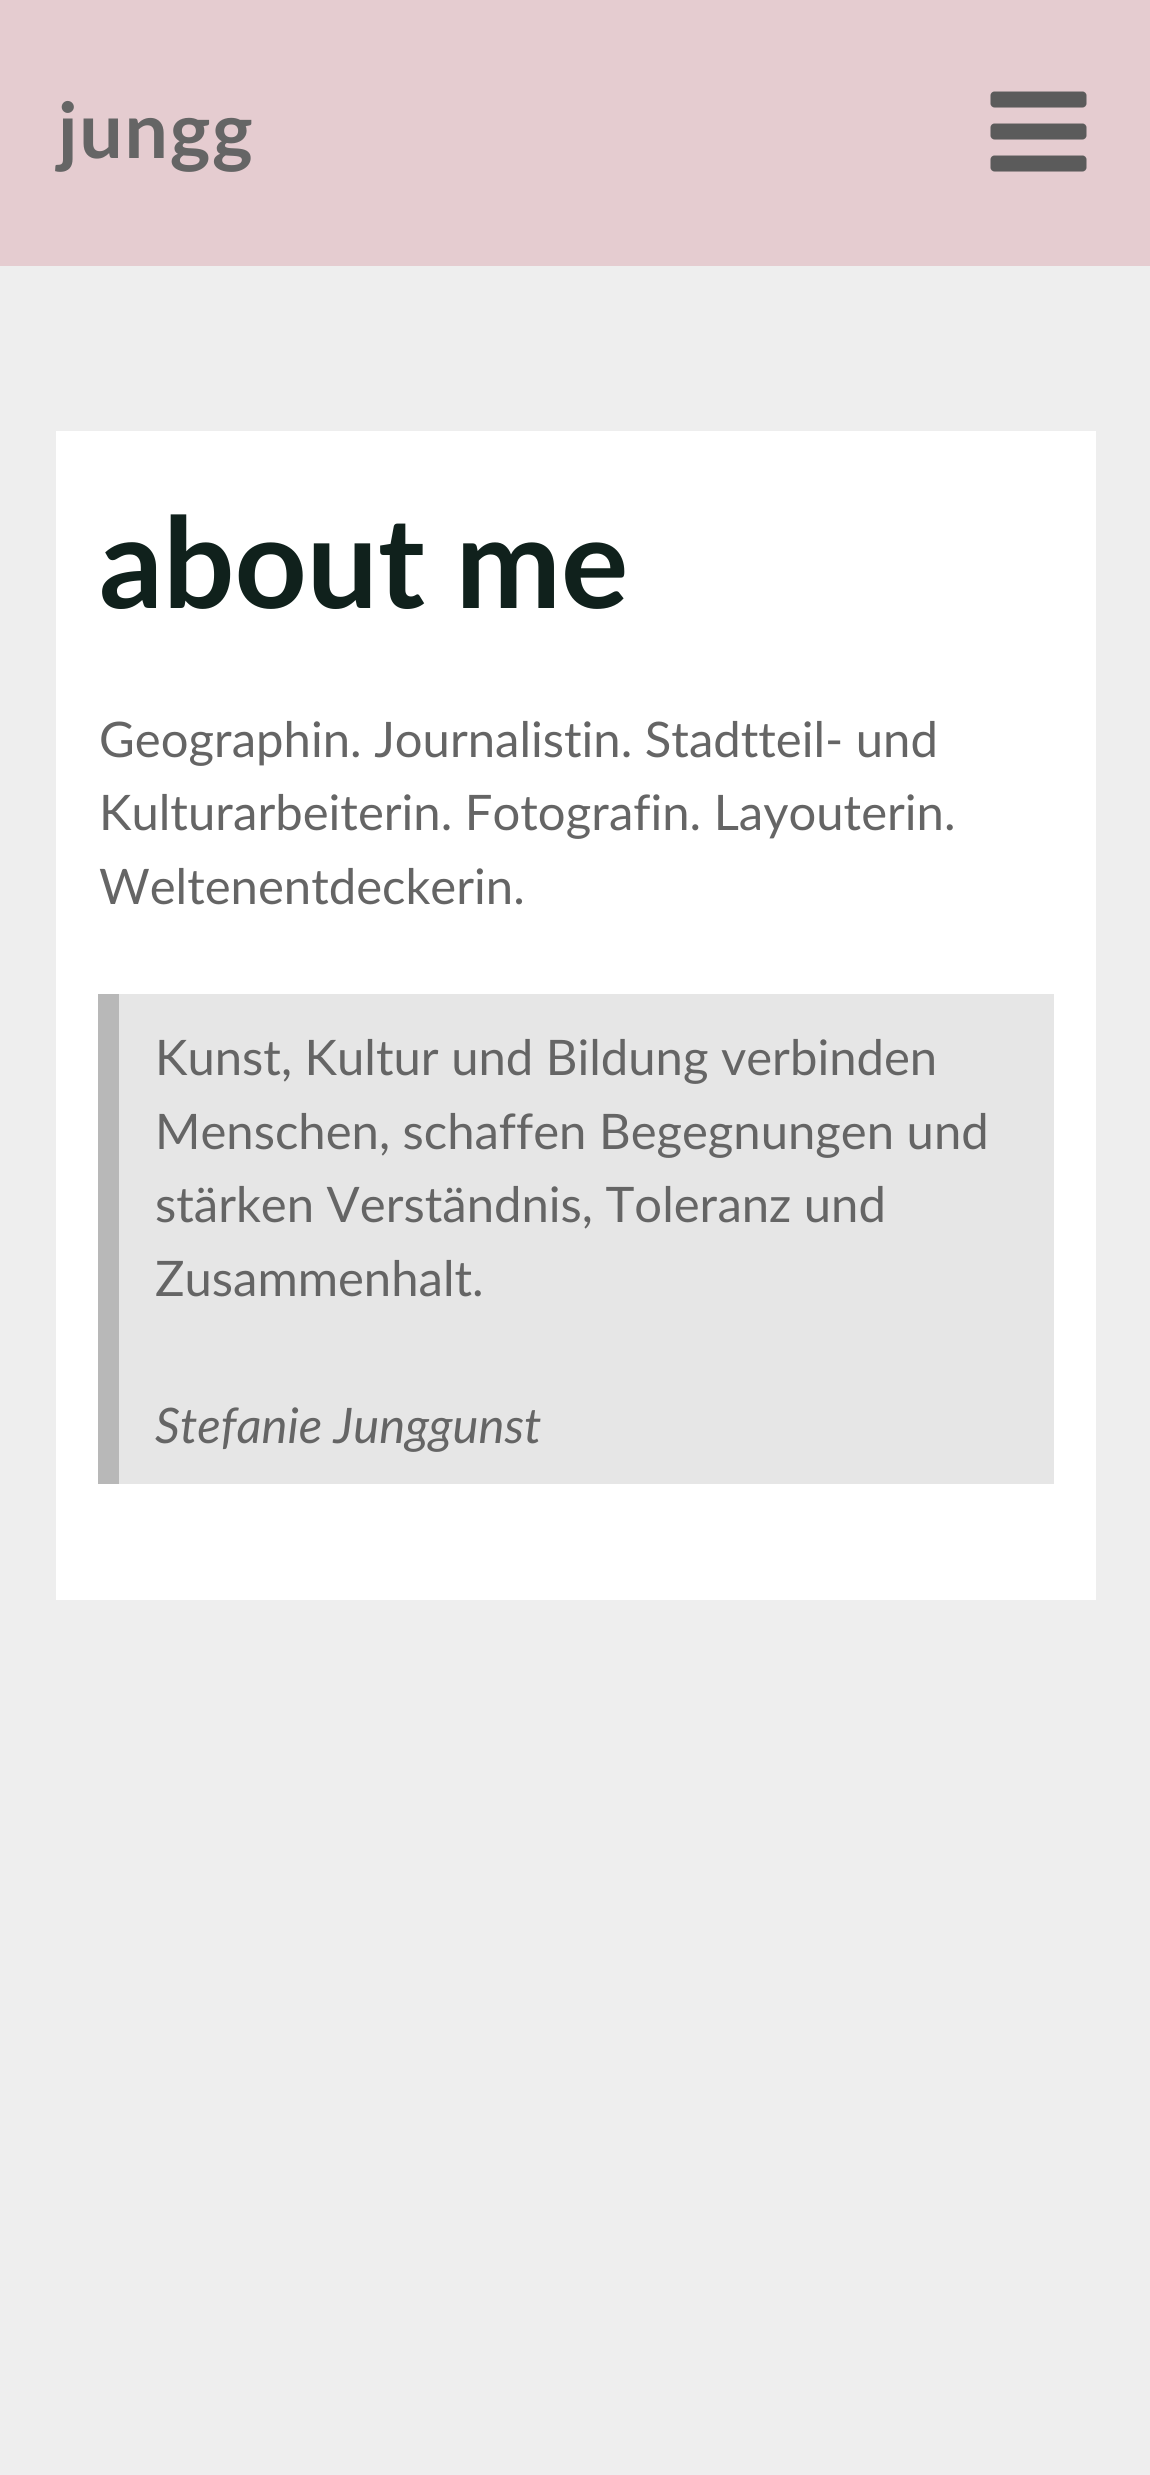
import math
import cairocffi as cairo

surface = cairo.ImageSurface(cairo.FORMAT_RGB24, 1150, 2475)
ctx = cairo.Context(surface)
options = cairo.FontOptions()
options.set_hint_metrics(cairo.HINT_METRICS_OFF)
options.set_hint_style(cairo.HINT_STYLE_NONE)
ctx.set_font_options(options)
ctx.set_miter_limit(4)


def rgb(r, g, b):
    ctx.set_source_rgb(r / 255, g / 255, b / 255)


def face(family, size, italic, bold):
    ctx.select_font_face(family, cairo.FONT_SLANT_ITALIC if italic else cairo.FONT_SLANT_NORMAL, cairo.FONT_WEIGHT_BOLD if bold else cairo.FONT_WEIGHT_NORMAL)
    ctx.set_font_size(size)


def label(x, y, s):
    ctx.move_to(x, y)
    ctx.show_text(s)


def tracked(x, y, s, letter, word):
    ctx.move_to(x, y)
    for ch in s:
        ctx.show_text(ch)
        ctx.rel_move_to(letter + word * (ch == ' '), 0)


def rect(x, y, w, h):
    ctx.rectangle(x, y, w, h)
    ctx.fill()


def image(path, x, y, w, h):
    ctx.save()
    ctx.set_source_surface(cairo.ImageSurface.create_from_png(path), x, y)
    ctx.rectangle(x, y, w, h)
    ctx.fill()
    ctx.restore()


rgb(238, 238, 238)
ctx.paint()
rgb(229, 204, 208)
rect(0, 0, 1150, 266)
face('Lato', 77, 0, 1)
rgb(101, 101, 101)
tracked(58, 158, 'jungg', 1.75, 0)
image('image0.png', 990, 91, 97, 81)
rgb(255, 255, 255)
rect(56, 431, 1040, 1169)
face('Lato', 126, 0, 1)
rgb(16, 33, 28)
label(99, 608, 'about me')
face('Lato', 49, 0, 0)
rgb(101, 101, 101)
label(99, 757, 'Geographin. Journalistin. Stadtteil- und')
label(99, 830, 'Kulturarbeiterin. Fotografin. Layouterin.')
label(99, 904, 'Weltenentdeckerin.')
rgb(230, 230, 230)
rect(119, 994, 935, 490)
rgb(184, 184, 184)
rect(98, 994, 21, 490)
rgb(101, 101, 101)
label(155, 1075, 'Kunst, Kultur und Bildung verbinden')
label(155, 1149, 'Menschen, schaffen Begegnungen und')
label(155, 1222, 'stärken Verständnis, Toleranz und')
label(155, 1296, 'Zusammenhalt.')
face('Lato', 49, 1, 0)
label(155, 1443, 'Stefanie Junggunst')
surface.write_to_png('render.png')
